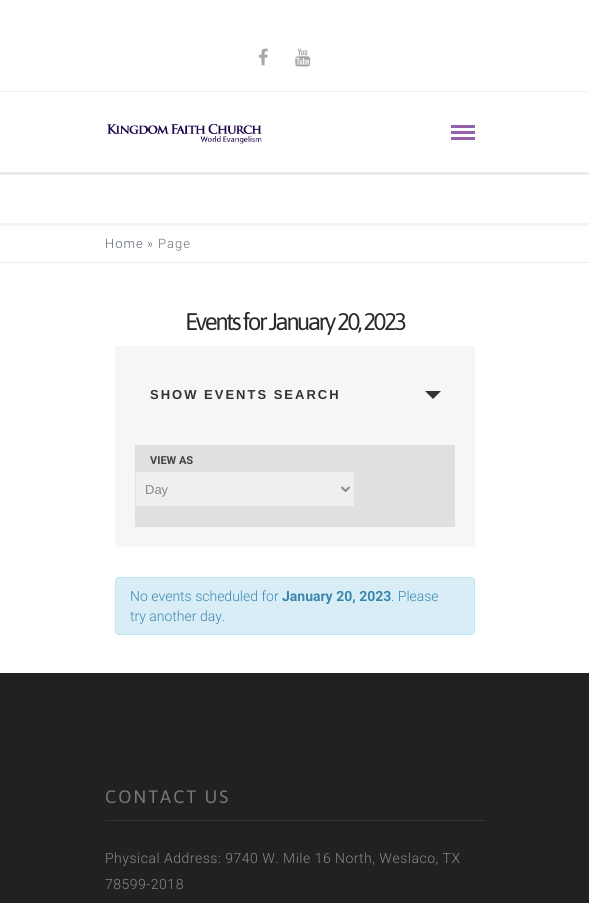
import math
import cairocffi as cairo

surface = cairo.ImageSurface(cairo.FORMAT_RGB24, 589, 903)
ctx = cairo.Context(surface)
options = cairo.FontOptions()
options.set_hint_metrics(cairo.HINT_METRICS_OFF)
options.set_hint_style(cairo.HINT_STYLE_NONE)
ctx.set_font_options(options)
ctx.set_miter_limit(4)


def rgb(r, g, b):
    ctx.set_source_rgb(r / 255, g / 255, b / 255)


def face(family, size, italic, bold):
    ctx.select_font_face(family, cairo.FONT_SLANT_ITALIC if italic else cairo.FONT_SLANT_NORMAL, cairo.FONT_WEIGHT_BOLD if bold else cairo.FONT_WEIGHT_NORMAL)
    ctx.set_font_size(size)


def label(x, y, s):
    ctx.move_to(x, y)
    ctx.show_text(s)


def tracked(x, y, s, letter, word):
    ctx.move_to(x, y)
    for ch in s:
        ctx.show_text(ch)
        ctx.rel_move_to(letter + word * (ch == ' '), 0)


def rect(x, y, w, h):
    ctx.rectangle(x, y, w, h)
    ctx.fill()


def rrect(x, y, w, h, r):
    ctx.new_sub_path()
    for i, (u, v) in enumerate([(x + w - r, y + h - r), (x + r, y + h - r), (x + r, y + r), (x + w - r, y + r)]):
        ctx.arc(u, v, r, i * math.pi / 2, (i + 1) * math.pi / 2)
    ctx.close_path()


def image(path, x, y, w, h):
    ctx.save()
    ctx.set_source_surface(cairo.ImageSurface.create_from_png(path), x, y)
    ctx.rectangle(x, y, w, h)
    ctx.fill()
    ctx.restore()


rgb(255, 255, 255)
ctx.paint()
rgb(241, 241, 241)
rect(0, 91, 589, 1)
image('image0.png', 258, 48, 10, 18)
image('image1.png', 295, 48, 16, 19)
rgb(233, 233, 233)
rect(0, 172, 589, 2)
image('image2.png', 107, 123, 155, 21)
rgb(150, 97, 171)
rect(451, 125, 24, 3)
rect(451, 131, 24, 3)
rect(451, 137, 24, 3)
rgb(238, 238, 238)
rect(0, 174, 589, 1)
rgb(243, 243, 243)
rect(0, 223, 589, 3)
rgb(238, 238, 238)
rect(0, 262, 589, 1)
face('Roboto Light', 13, 0, 0)
rgb(92, 100, 109)
tracked(105, 248, 'Home', 1, 0)
rgb(108, 114, 121)
tracked(147, 248, '» Page', 1, 0)
face('Asap', 24, 0, 0)
rgb(41, 41, 41)
tracked(185, 330, 'Events for January 20, 2023', -2.5, 0)
rgb(246, 246, 246)
rect(115, 346, 360, 201)
face('Liberation Sans', 13, 0, 1)
rgb(51, 51, 51)
tracked(150, 399, 'SHOW EVENTS SEARCH', 2, 0)
ctx.new_path()
ctx.move_to(425, 391)
ctx.line_to(441, 391)
ctx.line_to(433, 399)
ctx.close_path()
ctx.fill()
rgb(224, 224, 224)
rect(135, 445, 320, 82)
face('Roboto', 11, 0, 1)
rgb(66, 66, 66)
label(150, 464, 'VIEW AS')
rgb(239, 239, 239)
rrect(135.5, 471.5, 219, 35, 0.5)
ctx.fill_preserve()
rgb(225, 225, 225)
ctx.set_line_width(1)
ctx.stroke()
ctx.new_path()
ctx.move_to(341.5, 487)
ctx.line_to(345.5, 491)
ctx.line_to(349.5, 487)
rgb(136, 136, 136)
ctx.set_line_width(2)
ctx.stroke()
face('Liberation Sans', 13, 0, 0)
label(145, 494, 'Day')
rgb(217, 237, 247)
rrect(115.5, 577.5, 359, 57, 3.5)
ctx.fill_preserve()
rgb(188, 232, 241)
ctx.set_line_width(1)
ctx.stroke()
face('Roboto Light', 14, 0, 0)
rgb(58, 135, 173)
label(130, 601, 'No events scheduled for')
face('Roboto', 14, 0, 1)
label(282, 601, 'January 20, 2023')
face('Roboto Light', 14, 0, 0)
label(391, 601, '. Please')
label(130, 621, 'try another day.')
rgb(32, 33, 33)
rect(0, 673, 589, 230)
rgb(51, 51, 51)
rect(105, 820, 380, 1)
face('Asap', 18, 0, 0)
rgb(119, 119, 119)
tracked(105, 803, 'CONTACT US', 2, 0)
face('Roboto Light', 14, 0, 0)
rgb(136, 136, 136)
tracked(105, 863, 'Physical Address: 9740 W. Mile 16 North, Weslaco, TX', 0.5, 0)
tracked(105, 889, '78599-2018', 0.5, 0)
surface.write_to_png('render.png')
